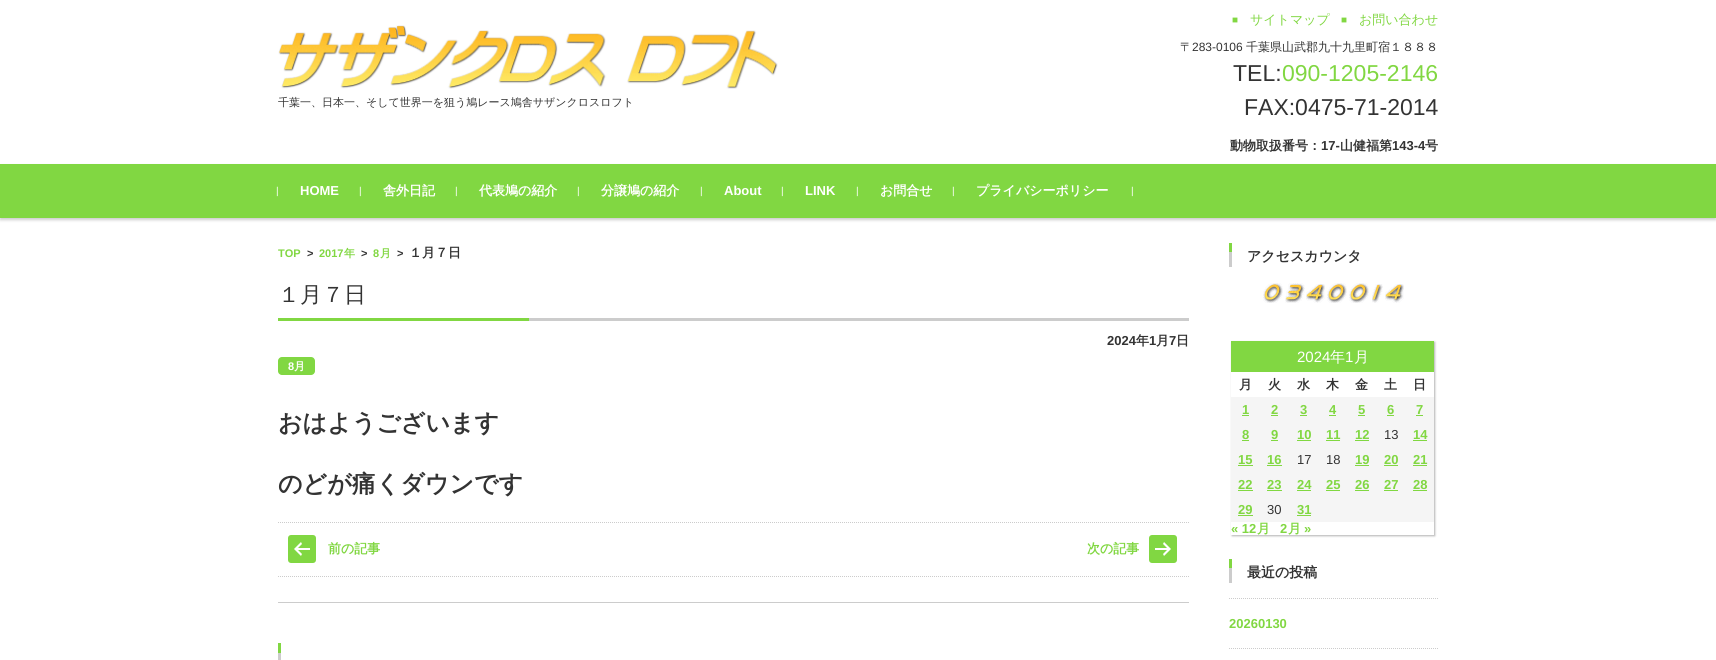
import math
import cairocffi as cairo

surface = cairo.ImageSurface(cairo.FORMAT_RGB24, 1716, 660)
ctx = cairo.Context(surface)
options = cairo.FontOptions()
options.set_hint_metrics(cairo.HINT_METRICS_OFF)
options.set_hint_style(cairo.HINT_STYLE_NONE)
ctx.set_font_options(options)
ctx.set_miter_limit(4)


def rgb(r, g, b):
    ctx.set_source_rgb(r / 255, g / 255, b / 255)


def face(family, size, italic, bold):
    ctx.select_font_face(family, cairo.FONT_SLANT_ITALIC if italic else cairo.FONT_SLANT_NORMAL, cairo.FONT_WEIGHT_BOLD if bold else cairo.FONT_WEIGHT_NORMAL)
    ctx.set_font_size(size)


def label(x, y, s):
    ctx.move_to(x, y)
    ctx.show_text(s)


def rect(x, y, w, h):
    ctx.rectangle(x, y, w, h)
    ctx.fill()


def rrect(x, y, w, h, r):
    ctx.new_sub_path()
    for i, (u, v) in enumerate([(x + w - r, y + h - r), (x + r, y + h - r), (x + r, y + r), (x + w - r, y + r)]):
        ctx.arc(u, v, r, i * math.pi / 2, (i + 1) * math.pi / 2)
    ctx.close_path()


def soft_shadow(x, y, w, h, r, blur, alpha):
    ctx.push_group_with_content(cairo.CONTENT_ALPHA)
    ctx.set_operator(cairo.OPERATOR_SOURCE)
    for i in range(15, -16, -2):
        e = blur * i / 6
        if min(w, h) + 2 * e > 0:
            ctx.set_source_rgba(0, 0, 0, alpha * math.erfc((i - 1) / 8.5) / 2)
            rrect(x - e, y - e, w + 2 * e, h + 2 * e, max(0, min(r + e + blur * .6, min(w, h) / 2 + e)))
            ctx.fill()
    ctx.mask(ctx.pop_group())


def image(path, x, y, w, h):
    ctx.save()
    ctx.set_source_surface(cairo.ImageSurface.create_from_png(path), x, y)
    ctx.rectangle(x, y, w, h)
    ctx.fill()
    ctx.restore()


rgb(255, 255, 255)
ctx.paint()
image('image0.png', 278, 25, 500, 64)
face('WenQuanYi Zen Hei Medium', 11, 0, 0)
rgb(51, 51, 51)
label(278, 106, '千葉一、日本一、そして世界一を狙う鳩レース鳩舎サザンクロスロフト')
face('Liberation Sans', 10, 0, 0)
rgb(129, 215, 66)
label(1232, 23, '■')
face('WenQuanYi Zen Hei Medium', 13, 0, 0)
label(1250, 24, 'サイトマップ')
face('Liberation Sans', 10, 0, 0)
label(1341, 23, '■')
face('WenQuanYi Zen Hei Medium', 13, 0, 0)
label(1359, 24, 'お問い合わせ')
face('WenQuanYi Zen Hei Medium', 12, 0, 0)
rgb(51, 51, 51)
label(1180, 51, '〒')
face('Liberation Sans', 12, 0, 0)
label(1192, 51, '283-0106')
face('WenQuanYi Zen Hei Medium', 12, 0, 0)
label(1246, 51, '千葉県山武郡九十九里町宿１８８８')
face('Liberation Sans', 23, 0, 0)
label(1233, 81, 'TEL:')
rgb(129, 215, 66)
label(1282, 81, '090-1205-2146')
rgb(51, 51, 51)
label(1244, 115, 'FAX:0475-71-2014')
face('WenQuanYi Zen Hei', 13, 0, 1)
label(1230, 150, '動物取扱番号：')
face('Liberation Sans', 13, 0, 1)
label(1321, 150, '17-')
face('WenQuanYi Zen Hei', 13, 0, 1)
label(1340, 150, '山健福第')
face('Liberation Sans', 13, 0, 1)
label(1392, 150, '143-4')
face('WenQuanYi Zen Hei', 13, 0, 1)
label(1425, 150, '号')
rgb(0, 0, 0)
soft_shadow(0, 166, 1716, 54, 0, 1.5, 0.2)
rgb(129, 215, 66)
rect(0, 164, 1716, 54)
face('Liberation Sans', 10, 0, 0)
rgb(255, 255, 255)
label(276, 194, '|')
face('Liberation Sans', 13, 0, 1)
label(300, 195, 'HOME')
face('Liberation Sans', 10, 0, 0)
label(359, 194, '|')
face('WenQuanYi Zen Hei', 13, 0, 1)
label(383, 195, '舎外日記')
face('Liberation Sans', 10, 0, 0)
label(455, 194, '|')
face('WenQuanYi Zen Hei', 13, 0, 1)
label(479, 195, '代表鳩の紹介')
face('Liberation Sans', 10, 0, 0)
label(577, 194, '|')
face('WenQuanYi Zen Hei', 13, 0, 1)
label(601, 195, '分譲鳩の紹介')
face('Liberation Sans', 10, 0, 0)
label(700, 194, '|')
face('Liberation Sans', 13, 0, 1)
label(724, 195, 'About')
face('Liberation Sans', 10, 0, 0)
label(781, 194, '|')
face('Liberation Sans', 13, 0, 1)
label(805, 195, 'LINK')
face('Liberation Sans', 10, 0, 0)
label(856, 194, '|')
face('WenQuanYi Zen Hei', 13, 0, 1)
label(880, 195, 'お問合せ')
face('Liberation Sans', 10, 0, 0)
label(952, 194, '|')
face('WenQuanYi Zen Hei', 13, 0, 1)
label(976, 195, 'プライバシーポリシー')
face('Liberation Sans', 10, 0, 0)
label(1131, 194, '|')
face('Liberation Sans', 11, 0, 1)
rgb(129, 215, 66)
label(278, 257, 'TOP')
rgb(51, 51, 51)
label(307, 257, '>')
rgb(129, 215, 66)
label(319, 257, '2017')
face('WenQuanYi Zen Hei', 11, 0, 1)
label(344, 257, '年')
face('Liberation Sans', 11, 0, 1)
rgb(51, 51, 51)
label(361, 257, '>')
rgb(129, 215, 66)
label(373, 257, '8')
face('WenQuanYi Zen Hei', 11, 0, 1)
label(380, 257, '月')
face('Liberation Sans', 11, 0, 1)
rgb(51, 51, 51)
label(397, 257, '>')
face('WenQuanYi Zen Hei', 13, 0, 1)
label(409, 257, '１月７日')
rgb(204, 204, 204)
rect(529, 318, 660, 3)
face('WenQuanYi Zen Hei Medium', 22, 0, 0)
rgb(51, 51, 51)
label(278, 302, '１月７日')
rgb(129, 215, 66)
rect(278, 318, 251, 3)
face('Liberation Sans', 13, 0, 1)
rgb(51, 51, 51)
label(1107, 345, '2024')
face('WenQuanYi Zen Hei', 13, 0, 1)
label(1136, 345, '年')
face('Liberation Sans', 13, 0, 1)
label(1149, 345, '1')
face('WenQuanYi Zen Hei', 13, 0, 1)
label(1156, 345, '月')
face('Liberation Sans', 13, 0, 1)
label(1169, 345, '7')
face('WenQuanYi Zen Hei', 13, 0, 1)
label(1176, 345, '日')
rgb(129, 215, 66)
rrect(278, 357, 37, 18, 4)
ctx.fill()
face('Liberation Sans', 11, 0, 1)
rgb(255, 255, 255)
label(288, 370, '8')
face('WenQuanYi Zen Hei', 11, 0, 1)
label(294, 370, '月')
face('WenQuanYi Zen Hei', 24, 0, 1)
rgb(51, 51, 51)
label(278, 431, 'おはようございます')
label(278, 492, 'のどが痛くダウンです')
ctx.new_path()
ctx.move_to(278, 522.5)
ctx.line_to(1189, 522.5)
rgb(204, 204, 204)
ctx.set_line_width(1)
ctx.set_dash([1, 1])
ctx.stroke()
ctx.new_path()
ctx.move_to(278, 576.5)
ctx.line_to(1189, 576.5)
ctx.stroke()
rgb(129, 215, 66)
rrect(288, 535, 28, 28, 3)
ctx.fill()
image('image1.png', 294, 542, 16, 14)
face('WenQuanYi Zen Hei', 13, 0, 1)
label(328, 553, '前の記事')
label(1087, 553, '次の記事')
rrect(1149, 535, 28, 28, 3)
ctx.fill()
image('image2.png', 1155, 542, 16, 14)
rgb(204, 204, 204)
rect(278, 602, 911, 1)
rect(278, 653, 3, 7)
rgb(129, 215, 66)
rect(278, 643, 3, 10)
rgb(204, 204, 204)
rect(1229, 252, 3, 15)
rgb(129, 215, 66)
rect(1229, 243, 3, 9)
face('WenQuanYi Zen Hei', 14, 0, 1)
rgb(51, 51, 51)
label(1247, 261, 'アクセスカウンタ')
image('image3.png', 1263, 283, 20, 20)
image('image4.png', 1285, 283, 20, 20)
image('image5.png', 1306, 284, 19, 19)
image('image3.png', 1327, 283, 20, 20)
image('image3.png', 1349, 283, 20, 20)
image('image6.png', 1372, 284, 11, 19)
image('image5.png', 1385, 284, 19, 19)
ctx.save()
ctx.set_fill_rule(cairo.FILL_RULE_EVEN_ODD)
ctx.new_path()
ctx.move_to(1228, 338)
ctx.line_to(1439, 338)
ctx.line_to(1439, 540)
ctx.line_to(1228, 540)
ctx.close_path()
ctx.move_to(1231, 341)
ctx.line_to(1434, 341)
ctx.line_to(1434, 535)
ctx.line_to(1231, 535)
ctx.close_path()
ctx.clip()
rgb(0, 0, 0)
soft_shadow(1232, 342, 203, 194, 0, 1, 0.3)
ctx.restore()
rgb(129, 215, 66)
rect(1231, 341, 203, 31)
face('Liberation Sans', 15, 0, 0)
rgb(255, 255, 255)
label(1297, 362, '2024')
face('WenQuanYi Zen Hei Medium', 15, 0, 0)
label(1330, 362, '年')
face('Liberation Sans', 15, 0, 0)
label(1345, 362, '1')
face('WenQuanYi Zen Hei Medium', 15, 0, 0)
label(1354, 362, '月')
face('WenQuanYi Zen Hei', 13, 0, 1)
rgb(51, 51, 51)
label(1239, 389, '月')
label(1268, 389, '火')
label(1297, 389, '水')
label(1326, 389, '木')
label(1355, 389, '金')
label(1384, 389, '土')
label(1413, 389, '日')
rgb(245, 245, 245)
rect(1231, 397, 203, 25)
face('Liberation Sans', 13, 0, 1)
rgb(129, 215, 66)
label(1242, 414, '1')
rect(1242, 415, 7, 1)
label(1271, 414, '2')
rect(1271, 415, 7, 1)
label(1300, 414, '3')
rect(1300, 415, 7, 1)
label(1329, 414, '4')
rect(1329, 415, 7, 1)
label(1358, 414, '5')
rect(1358, 415, 7, 1)
label(1387, 414, '6')
rect(1387, 415, 7, 1)
label(1416, 414, '7')
rect(1416, 415, 7, 1)
rgb(245, 245, 245)
rect(1231, 422, 203, 25)
rgb(129, 215, 66)
label(1242, 439, '8')
rect(1242, 440, 7, 1)
label(1271, 439, '9')
rect(1271, 440, 7, 1)
label(1297, 439, '10')
rect(1297, 440, 14, 1)
label(1326, 439, '11')
rect(1326, 440, 14, 1)
label(1355, 439, '12')
rect(1355, 440, 14, 1)
face('Liberation Sans', 13, 0, 0)
rgb(51, 51, 51)
label(1384, 439, '13')
face('Liberation Sans', 13, 0, 1)
rgb(129, 215, 66)
label(1413, 439, '14')
rect(1413, 440, 14, 1)
rgb(245, 245, 245)
rect(1231, 447, 203, 25)
rgb(129, 215, 66)
label(1238, 464, '15')
rect(1238, 465, 15, 1)
label(1267, 464, '16')
rect(1267, 465, 15, 1)
face('Liberation Sans', 13, 0, 0)
rgb(51, 51, 51)
label(1297, 464, '17')
label(1326, 464, '18')
face('Liberation Sans', 13, 0, 1)
rgb(129, 215, 66)
label(1355, 464, '19')
rect(1355, 465, 14, 1)
label(1384, 464, '20')
rect(1384, 465, 14, 1)
label(1413, 464, '21')
rect(1413, 465, 14, 1)
rgb(245, 245, 245)
rect(1231, 472, 203, 25)
rgb(129, 215, 66)
label(1238, 489, '22')
rect(1238, 490, 15, 1)
label(1267, 489, '23')
rect(1267, 490, 15, 1)
label(1297, 489, '24')
rect(1297, 490, 14, 1)
label(1326, 489, '25')
rect(1326, 490, 14, 1)
label(1355, 489, '26')
rect(1355, 490, 14, 1)
label(1384, 489, '27')
rect(1384, 490, 14, 1)
label(1413, 489, '28')
rect(1413, 490, 14, 1)
rgb(245, 245, 245)
rect(1231, 497, 203, 25)
rgb(129, 215, 66)
label(1238, 514, '29')
rect(1238, 515, 15, 1)
face('Liberation Sans', 13, 0, 0)
rgb(51, 51, 51)
label(1267, 514, '30')
face('Liberation Sans', 13, 0, 1)
rgb(129, 215, 66)
label(1297, 514, '31')
rect(1297, 515, 14, 1)
label(1231, 533, '« 12')
face('WenQuanYi Zen Hei', 13, 0, 1)
label(1257, 533, '月')
face('Liberation Sans', 13, 0, 1)
label(1280, 533, '2')
face('WenQuanYi Zen Hei', 13, 0, 1)
label(1288, 533, '月')
face('Liberation Sans', 13, 0, 1)
label(1304, 533, '»')
rgb(204, 204, 204)
rect(1229, 568, 3, 15)
rgb(129, 215, 66)
rect(1229, 559, 3, 9)
face('WenQuanYi Zen Hei', 14, 0, 1)
rgb(51, 51, 51)
label(1247, 577, '最近の投稿')
ctx.new_path()
ctx.move_to(1229, 598.5)
ctx.line_to(1438, 598.5)
rgb(204, 204, 204)
ctx.stroke()
ctx.new_path()
ctx.move_to(1229, 648.5)
ctx.line_to(1438, 648.5)
ctx.stroke()
face('Liberation Sans', 13, 0, 1)
rgb(129, 215, 66)
label(1229, 628, '20260130')
surface.write_to_png('render.png')
